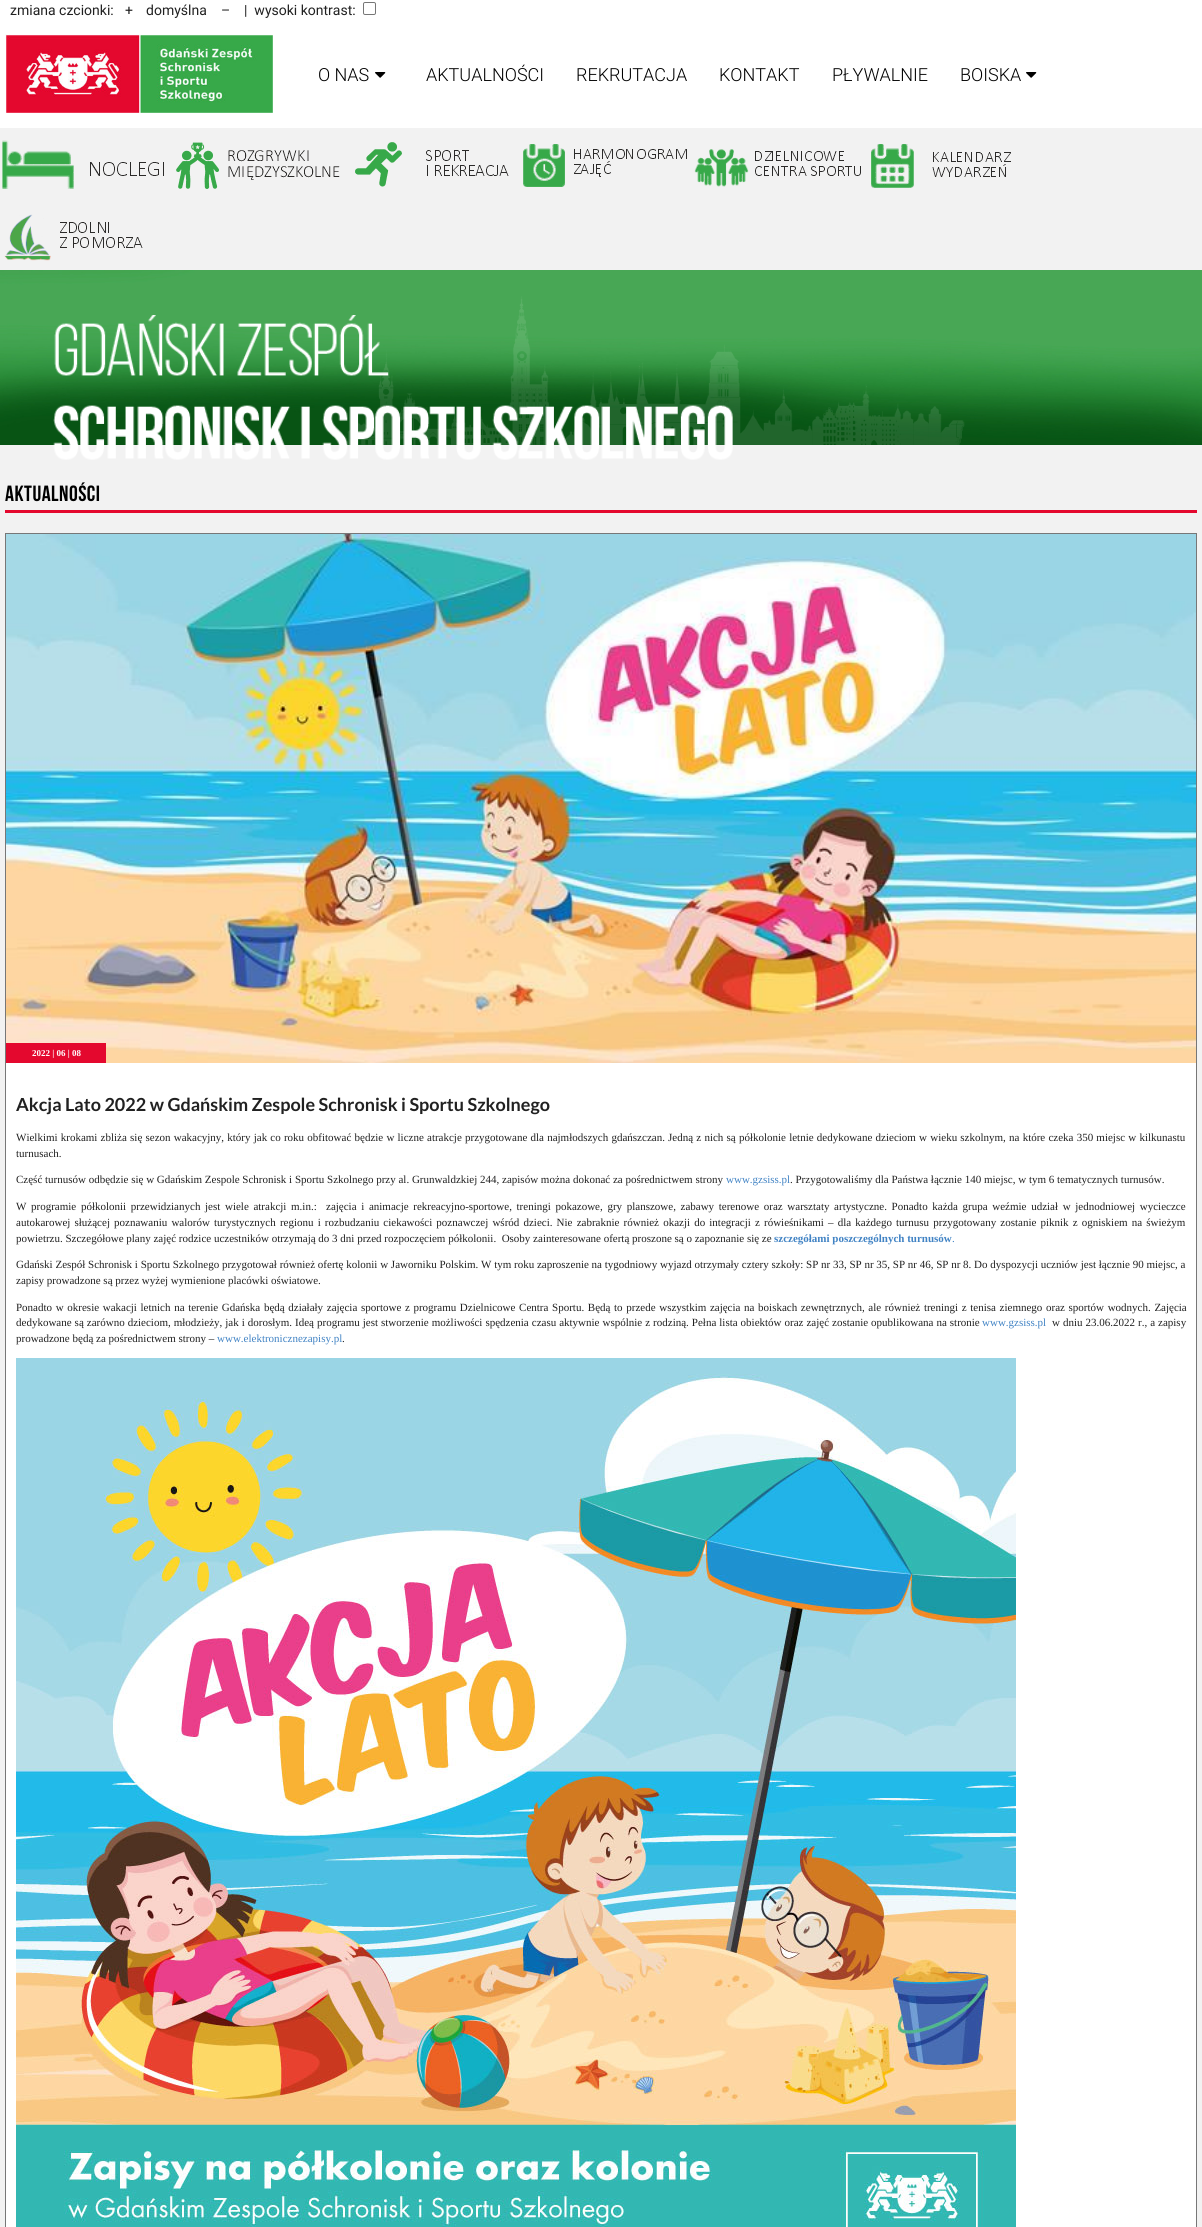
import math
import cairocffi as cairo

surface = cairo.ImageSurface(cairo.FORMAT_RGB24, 1202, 2227)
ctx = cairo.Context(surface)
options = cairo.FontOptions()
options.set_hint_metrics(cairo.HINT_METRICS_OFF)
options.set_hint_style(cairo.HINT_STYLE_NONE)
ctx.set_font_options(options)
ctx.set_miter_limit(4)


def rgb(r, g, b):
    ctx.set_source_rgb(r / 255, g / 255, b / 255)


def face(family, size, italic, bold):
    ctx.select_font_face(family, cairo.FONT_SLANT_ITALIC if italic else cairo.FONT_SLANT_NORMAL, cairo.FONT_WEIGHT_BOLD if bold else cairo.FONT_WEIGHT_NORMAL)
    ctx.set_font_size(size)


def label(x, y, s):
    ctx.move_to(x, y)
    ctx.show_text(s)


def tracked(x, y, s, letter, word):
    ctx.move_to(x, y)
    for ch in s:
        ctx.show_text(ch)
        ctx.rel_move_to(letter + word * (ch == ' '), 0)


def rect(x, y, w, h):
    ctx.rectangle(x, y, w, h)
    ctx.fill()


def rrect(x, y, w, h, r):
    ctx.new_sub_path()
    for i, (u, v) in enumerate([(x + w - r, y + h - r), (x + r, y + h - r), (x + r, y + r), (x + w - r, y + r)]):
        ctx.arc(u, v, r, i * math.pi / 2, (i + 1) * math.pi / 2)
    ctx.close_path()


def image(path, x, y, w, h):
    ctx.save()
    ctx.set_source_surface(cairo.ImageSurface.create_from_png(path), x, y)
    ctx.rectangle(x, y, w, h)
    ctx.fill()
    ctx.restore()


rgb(242, 242, 242)
ctx.paint()
rgb(255, 255, 255)
rect(0, 0, 1202, 128)
face('Roboto', 14, 0, 0)
rgb(33, 33, 33)
label(10, 15, 'zmiana czcionki:')
label(125, 15, '+')
label(146, 15, 'domyślna')
label(221, 15, '–')
label(244, 15, '|  wysoki kontrast:')
rrect(363.5, 2.5, 12, 12, 1.5)
rgb(118, 118, 118)
ctx.set_line_width(1)
ctx.stroke()
image('image0.png', 5, 34, 268, 79)
face('Roboto Light', 18, 0, 0)
rgb(0, 0, 0)
label(318, 81, 'O NAS')
image('image1.png', 375, 72, 11, 6)
label(426, 81, 'AKTUALNOŚCI')
label(576, 81, 'REKRUTACJA')
label(719, 81, 'KONTAKT')
label(832, 81, 'PŁYWALNIE')
label(960, 81, 'BOISKA')
image('image1.png', 1026, 72, 11, 6)
image('image2.png', 2, 140, 162, 49)
image('image3.png', 176, 142, 164, 47)
image('image4.png', 355, 142, 154, 45)
image('image5.png', 523, 144, 164, 43)
image('image6.png', 694, 149, 167, 38)
image('image7.png', 871, 144, 140, 44)
image('image8.png', 4, 214, 139, 47)
image('image9.png', 0, 270, 1202, 175)
image('image11.png', 53, 315, 680, 145)
image('image10.png', 347, 296, 618, 149)
rgb(228, 8, 46)
rect(5, 510, 1192, 3)
face('Bebas Neue', 22, 0, 1)
rgb(0, 0, 0)
tracked(5, 501, 'AKTUALNOŚCI', 0.5, 0)
rgb(255, 255, 255)
rect(6, 1063, 1190, 1164)
ctx.rectangle(5.5, 533.5, 1191, 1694)
rgb(119, 119, 119)
ctx.stroke()
image('image12.png', 6, 534, 1190, 529)
rgb(228, 8, 46)
rect(6, 1043, 100, 20)
face('Liberation Serif', 9, 0, 1)
rgb(255, 255, 255)
label(32, 1056, '2022 | 06 | 08')
face('Lato', 18, 0, 1)
rgb(33, 33, 33)
label(16, 1111, 'Akcja Lato 2022 w Gdańskim Zespole Schronisk i Sportu Szkolnego')
face('Liberation Serif', 11, 0, 0)
tracked(16, 1141, 'Wielkimi krokami zbliża się sezon wakacyjny, który jak co roku obfitować będzie w liczne atrakcje przygotowane dla najmłodszych gdańszczan. Jedną z nich są półkolonie letnie dedykowane dzieciom w wieku szkolnym, na które czeka 350 miejsc w kilkunastu', 0, 0.45)
label(16, 1157, 'turnusach.')
label(16, 1183, 'Część turnusów odbędzie się w Gdańskim Zespole Schronisk i Sportu Szkolnego przy al. Grunwaldzkiej 244, zapisów można dokonać za pośrednictwem strony')
rgb(65, 131, 196)
label(726, 1183, 'www.gzsiss.pl')
rgb(33, 33, 33)
label(790, 1183, '. Przygotowaliśmy dla Państwa łącznie 140 miejsc, w tym 6 tematycznych turnusów.')
tracked(16, 1210, 'W programie półkolonii przewidzianych jest wiele atrakcji m.in.:  zajęcia i animacje rekreacyjno-sportowe, treningi pokazowe, gry planszowe, zabawy terenowe oraz warsztaty artystyczne. Ponadto każda grupa weźmie udział w jednodniowej wycieczce', 0, 1.9)
tracked(16, 1226, 'autokarowej służącej poznawaniu walorów turystycznych regionu i rozbudzaniu ciekawości poznawczej wśród dzieci. Nie zabraknie również okazji do integracji z rówieśnikami – dla każdego turnusu przygotowany zostanie piknik z ogniskiem na świeżym', 0, 1.4)
label(16, 1242, 'powietrzu. Szczegółowe plany zajęć rodzice uczestników otrzymają do 3 dni przed rozpoczęciem półkolonii.  Osoby zainteresowane ofertą proszone są o zapoznanie się ze')
face('Liberation Serif', 11, 0, 1)
rgb(65, 131, 196)
label(774, 1242, 'szczegółami poszczególnych turnusów')
face('Liberation Serif', 11, 0, 0)
label(952, 1242, '.')
rgb(33, 33, 33)
label(16, 1268, 'Gdański Zespół Schronisk i Sportu Szkolnego przygotował również ofertę kolonii w Jaworniku Polskim. W tym roku zaproszenie na tygodniowy wyjazd otrzymały cztery szkoły: SP nr 33, SP nr 35, SP nr 46, SP nr 8. Do dyspozycji uczniów jest łącznie 90 miejsc, a')
label(16, 1284, 'zapisy prowadzone są przez wyżej wymienione placówki oświatowe.')
tracked(16, 1311, 'Ponadto w okresie wakacji letnich na terenie Gdańska będą działały zajęcia sportowe z programu Dzielnicowe Centra Sportu. Będą to przede wszystkim zajęcia na boiskach zewnętrznych, ale również treningi z tenisa ziemnego oraz sportów wodnych. Zajęcia', 0, 0.9)
tracked(16, 1326, 'dedykowane są zarówno dzieciom, młodzieży, jak i dorosłym. Ideą programu jest stworzenie możliwości spędzenia czasu aktywnie wspólnie z rodziną. Pełna lista obiektów oraz zajęć zostanie opublikowana na stronie', 0, 0.25)
rgb(65, 131, 196)
label(982, 1326, 'www.gzsiss.pl')
rgb(33, 33, 33)
tracked(1052, 1326, 'w dniu 23.06.2022 r., a zapisy', 0, 0.25)
label(16, 1342, 'prowadzone będą za pośrednictwem strony –')
rgb(65, 131, 196)
label(217, 1342, 'www.elektronicznezapisy.pl')
rgb(33, 33, 33)
label(342, 1342, '.')
image('image13.png', 16, 1358, 1000, 869)
surface.write_to_png('render.png')
